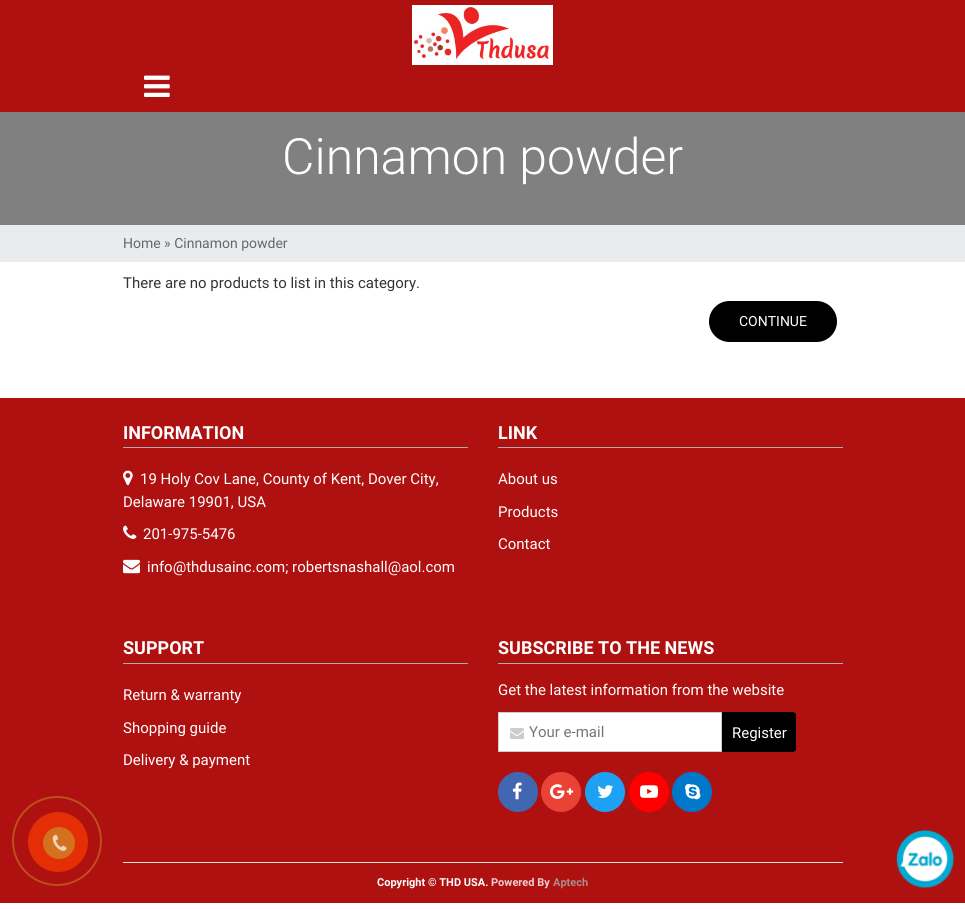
import math
import cairocffi as cairo

surface = cairo.ImageSurface(cairo.FORMAT_RGB24, 965, 909)
ctx = cairo.Context(surface)
options = cairo.FontOptions()
options.set_hint_metrics(cairo.HINT_METRICS_OFF)
options.set_hint_style(cairo.HINT_STYLE_NONE)
ctx.set_font_options(options)
ctx.set_miter_limit(4)


def rgb(r, g, b):
    ctx.set_source_rgb(r / 255, g / 255, b / 255)


def face(family, size, italic, bold):
    ctx.select_font_face(family, cairo.FONT_SLANT_ITALIC if italic else cairo.FONT_SLANT_NORMAL, cairo.FONT_WEIGHT_BOLD if bold else cairo.FONT_WEIGHT_NORMAL)
    ctx.set_font_size(size)


def label(x, y, s):
    ctx.move_to(x, y)
    ctx.show_text(s)


def rect(x, y, w, h):
    ctx.rectangle(x, y, w, h)
    ctx.fill()


def rrect(x, y, w, h, r):
    ctx.new_sub_path()
    for i, (u, v) in enumerate([(x + w - r, y + h - r), (x + r, y + h - r), (x + r, y + r), (x + w - r, y + r)]):
        ctx.arc(u, v, r, i * math.pi / 2, (i + 1) * math.pi / 2)
    ctx.close_path()


def image(path, x, y, w, h):
    ctx.save()
    ctx.set_source_surface(cairo.ImageSurface.create_from_png(path), x, y)
    ctx.rectangle(x, y, w, h)
    ctx.fill()
    ctx.restore()


rgb(255, 255, 255)
ctx.paint()
rgb(175, 17, 17)
rect(0, 0, 965, 112)
image('image0.png', 412, 5, 141, 60)
image('image1.png', 144, 75, 26, 22)
rgb(128, 128, 128)
rect(0, 112, 965, 113)
face('Roboto Light', 50, 0, 0)
rgb(255, 255, 255)
label(282, 174, 'Cinnamon powder')
rgb(233, 236, 239)
rect(0, 225, 965, 37)
face('Roboto', 14, 0, 0)
rgb(102, 102, 102)
label(123, 248, 'Home » Cinnamon powder')
face('Roboto', 15, 0, 0)
rgb(51, 51, 51)
label(123, 288, 'There are no products to list in this category.')
rgb(0, 0, 0)
rrect(709, 301, 128, 41, 20.5)
ctx.fill()
face('Roboto', 14, 0, 0)
rgb(255, 255, 255)
label(739, 326, 'CONTINUE')
rgb(175, 17, 17)
rect(0, 398, 965, 505)
ctx.new_path()
ctx.arc(57, 841, 44, 0, 2 * math.pi)
rgb(189, 79, 29)
ctx.stroke()
rgb(228, 46, 5)
ctx.arc(58, 842, 30, 0, 2 * math.pi)
ctx.fill()
rgb(210, 113, 30)
ctx.arc(59, 843, 16, 0, 2 * math.pi)
ctx.fill()
image('image2.png', 52, 834, 15, 18)
rgb(172, 172, 172)
rect(123, 447, 345, 1)
face('Roboto', 18, 0, 1)
rgb(255, 255, 255)
label(123, 439, 'INFORMATION')
image('image3.png', 123, 470, 10, 16)
face('Roboto', 15, 0, 0)
label(140, 484, '19 Holy Cov Lane, County of Kent, Dover City,')
label(123, 507, 'Delaware 19901, USA')
image('image4.png', 123, 525, 14, 14)
label(143, 539, '201-975-5476')
image('image5.png', 123, 559, 17, 15)
label(147, 572, 'info@thdusainc.com; robertsnashall@aol.com')
rgb(172, 172, 172)
rect(498, 447, 345, 1)
face('Roboto', 18, 0, 1)
rgb(255, 255, 255)
label(498, 439, 'LINK')
face('Roboto', 15, 0, 0)
label(498, 484, 'About us')
label(498, 517, 'Products')
label(498, 549, 'Contact')
rgb(172, 172, 172)
rect(123, 663, 345, 1)
face('Roboto', 18, 0, 1)
rgb(255, 255, 255)
label(123, 654, 'SUPPORT')
face('Roboto', 15, 0, 0)
label(123, 700, 'Return & warranty')
label(123, 733, 'Shopping guide')
label(123, 765, 'Delivery & payment')
rgb(172, 172, 172)
rect(498, 663, 345, 1)
face('Roboto', 18, 0, 1)
rgb(255, 255, 255)
label(498, 654, 'SUBSCRIBE TO THE NEWS')
face('Roboto', 15, 0, 0)
label(498, 695, 'Get the latest information from the website')
ctx.rectangle(498.5, 712.5, 223, 39)
ctx.fill_preserve()
rgb(204, 204, 204)
ctx.set_line_width(1)
ctx.stroke()
image('image6.png', 510, 728, 14, 11)
rgb(117, 117, 117)
label(529, 737, 'Your e-mail')
rgb(0, 0, 0)
ctx.new_path()
ctx.move_to(722, 712)
ctx.line_to(793, 712)
ctx.curve_to(794.5, 712, 796, 713.5, 796, 715)
ctx.line_to(796, 749)
ctx.curve_to(796, 750.5, 794.5, 752, 793, 752)
ctx.line_to(722, 752)
ctx.close_path()
ctx.fill()
rgb(255, 255, 255)
label(732, 738, 'Register')
rgb(66, 103, 178)
ctx.new_path()
ctx.arc(518, 792, 20, 0, 2 * math.pi)
ctx.fill()
image('image7.png', 512, 782, 10, 18)
rgb(234, 67, 53)
ctx.arc(561, 792, 20, 0, 2 * math.pi)
ctx.fill()
image('image8.png', 550, 784, 24, 15)
rgb(29, 161, 242)
ctx.arc(605, 792, 20, 0, 2 * math.pi)
ctx.fill()
image('image9.png', 597, 785, 17, 13)
rgb(255, 0, 0)
ctx.arc(649, 792, 20, 0, 2 * math.pi)
ctx.fill()
image('image10.png', 640, 785, 18, 13)
rgb(0, 120, 202)
ctx.arc(692, 792, 20, 0, 2 * math.pi)
ctx.fill()
image('image11.png', 685, 783, 16, 17)
rgb(225, 225, 225)
rect(123, 862, 720, 1)
face('Roboto', 11, 0, 1)
rgb(255, 255, 255)
label(377, 886, 'Copyright © THD USA.')
rgb(239, 207, 207)
label(491, 886, 'Powered By')
rgb(171, 139, 139)
label(553, 886, 'Aptech')
image('image12.png', 896, 830, 59, 59)
surface.write_to_png('render.png')
